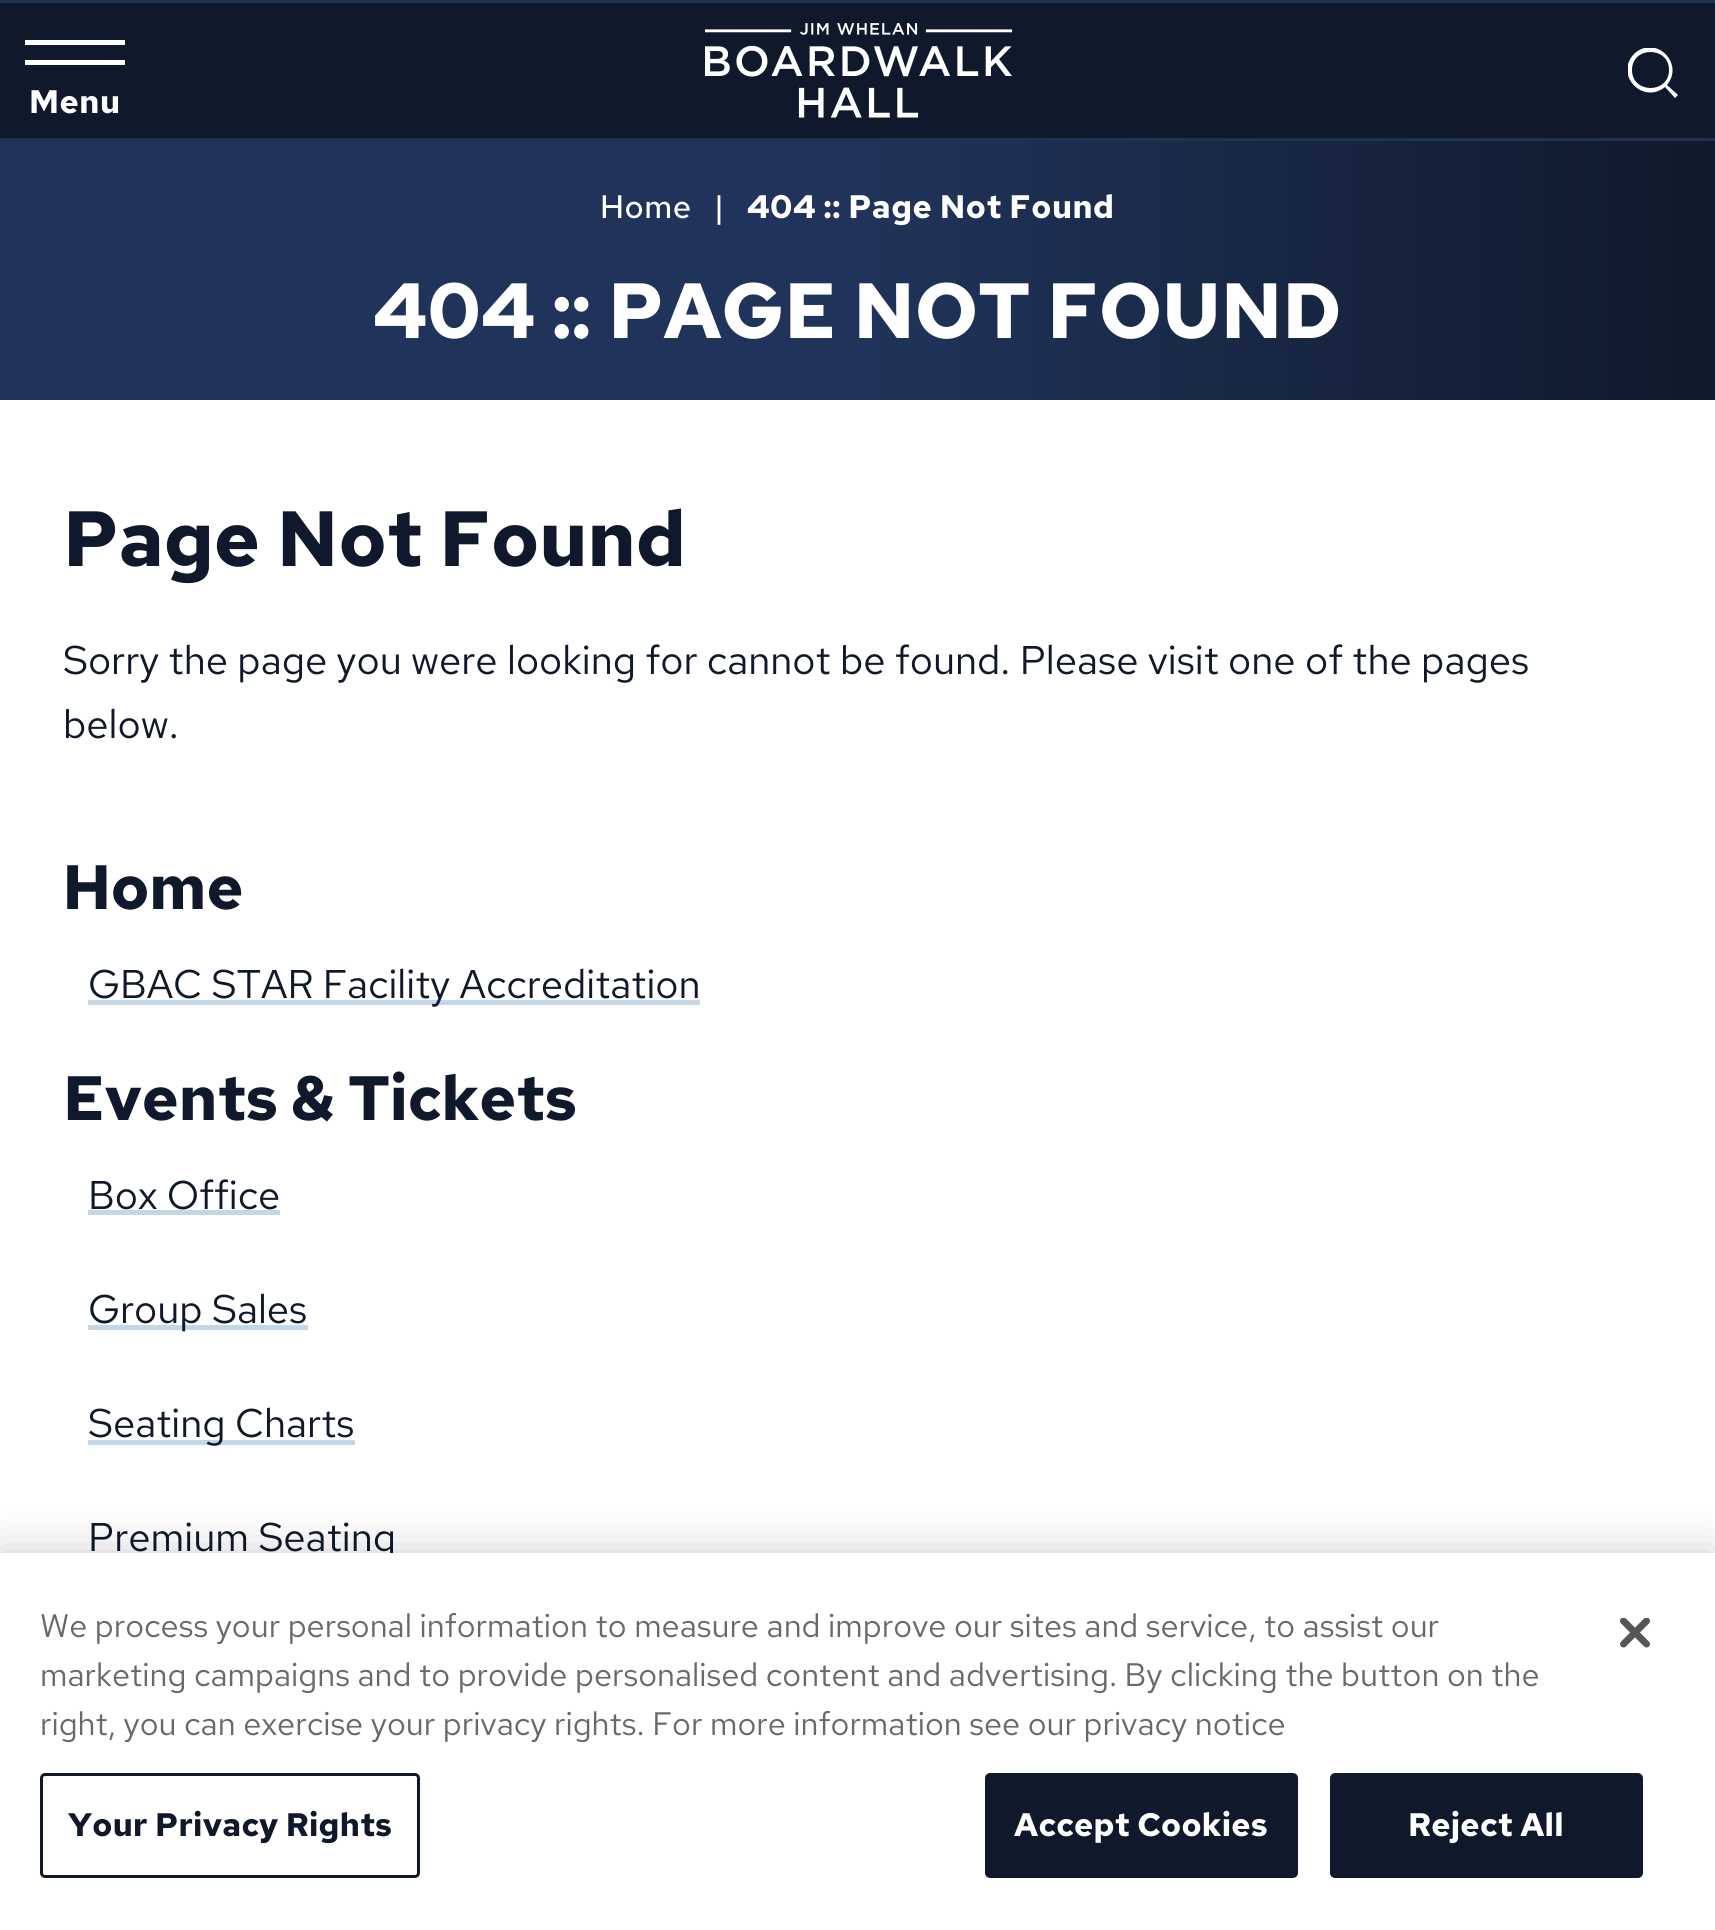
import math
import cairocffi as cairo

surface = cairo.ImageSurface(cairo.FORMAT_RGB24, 1715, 1930)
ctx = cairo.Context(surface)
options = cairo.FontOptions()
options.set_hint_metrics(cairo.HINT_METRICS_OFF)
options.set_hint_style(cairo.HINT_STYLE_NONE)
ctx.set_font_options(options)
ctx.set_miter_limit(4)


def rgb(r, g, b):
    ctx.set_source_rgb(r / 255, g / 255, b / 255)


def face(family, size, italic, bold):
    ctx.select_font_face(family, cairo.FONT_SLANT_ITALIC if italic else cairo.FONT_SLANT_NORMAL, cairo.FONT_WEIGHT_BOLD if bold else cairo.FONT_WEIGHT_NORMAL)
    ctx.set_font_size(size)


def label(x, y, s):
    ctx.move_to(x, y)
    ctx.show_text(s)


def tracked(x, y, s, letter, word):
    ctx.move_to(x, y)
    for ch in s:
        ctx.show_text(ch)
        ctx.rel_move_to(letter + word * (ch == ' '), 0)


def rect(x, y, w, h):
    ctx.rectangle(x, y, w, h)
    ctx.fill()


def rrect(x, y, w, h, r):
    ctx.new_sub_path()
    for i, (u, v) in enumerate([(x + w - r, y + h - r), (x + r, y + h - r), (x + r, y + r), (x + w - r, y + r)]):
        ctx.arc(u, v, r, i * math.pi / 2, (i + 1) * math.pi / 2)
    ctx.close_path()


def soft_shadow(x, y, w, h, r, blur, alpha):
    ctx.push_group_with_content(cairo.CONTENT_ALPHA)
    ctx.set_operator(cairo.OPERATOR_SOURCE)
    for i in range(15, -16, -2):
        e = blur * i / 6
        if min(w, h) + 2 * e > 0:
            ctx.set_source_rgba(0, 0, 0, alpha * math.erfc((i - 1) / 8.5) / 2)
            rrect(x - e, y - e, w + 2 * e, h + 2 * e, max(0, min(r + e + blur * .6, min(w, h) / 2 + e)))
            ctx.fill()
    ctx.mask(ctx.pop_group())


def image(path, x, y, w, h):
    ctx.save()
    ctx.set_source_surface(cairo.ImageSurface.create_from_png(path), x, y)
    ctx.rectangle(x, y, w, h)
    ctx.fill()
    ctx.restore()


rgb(255, 255, 255)
ctx.paint()
rgb(15, 25, 43)
rect(0, 3, 1715, 135)
rgb(33, 50, 81)
rect(0, 0, 1715, 3)
rect(0, 138, 1715, 3)
image('image0.png', 705, 23, 308, 95)
ctx.save()
ctx.rectangle(1628, 48, 50, 50)
ctx.clip()
rgb(255, 255, 255)
ctx.new_path()
ctx.move_to(1667, 85)
ctx.curve_to(1685, 63, 1655, 34, 1634, 54)
ctx.curve_to(1614, 75, 1643, 105, 1665, 87)
ctx.line_to(1675, 98)
ctx.line_to(1678, 95)
ctx.close_path()
ctx.move_to(1669, 70)
ctx.curve_to(1669, 94, 1632, 94, 1632, 70)
ctx.curve_to(1632, 46, 1669, 46, 1669, 70)
ctx.close_path()
ctx.fill()
ctx.restore()
rgb(255, 255, 255)
rect(25, 40, 100, 5)
rect(25, 60, 100, 5)
face('Red Hat Text', 32.5, 0, 1)
tracked(29, 113, 'Menu', 0.5, 0)
gradient = cairo.LinearGradient(0, 270, 1715, 270)
gradient.add_color_stop_rgba(0.5, 0.125, 0.204, 0.357, 1)
gradient.add_color_stop_rgba(1, 0.059, 0.098, 0.169, 1)
ctx.set_source(gradient)
rect(0, 141, 1715, 259)
face('Red Hat Text Medium', 32.5, 0, 0)
rgb(255, 255, 255)
tracked(600, 218, 'Home', 0.5, 0)
tracked(714, 218, '|', 0.5, 0)
face('Red Hat Text', 32.5, 0, 1)
tracked(747, 218, '404 :: Page Not Found', 0.5, 0)
face('Red Hat Text', 78.1, 0, 1)
label(373, 338, '404 :: PAGE NOT FOUND')
rgb(15, 25, 43)
label(63, 566, 'Page Not Found')
face('Red Hat Text', 40, 0, 0)
label(63, 674, 'Sorry the page you were looking for cannot be found. Please visit one of the pages')
label(63, 738, 'below.')
face('Red Hat Text', 62.5, 0, 1)
label(63, 909, 'Home')
rgb(196, 215, 232)
rect(88, 1000, 612, 5)
face('Red Hat Text', 40, 0, 0)
rgb(15, 25, 43)
label(88, 998, 'GBAC STAR Facility Accreditation')
face('Red Hat Text', 62.5, 0, 1)
label(63, 1120, 'Events & Tickets')
face('Red Hat Text', 40, 0, 0)
label(88, 1209, 'Box Office')
rgb(196, 215, 232)
rect(88, 1210, 192, 5)
rect(88, 1325, 220, 5)
rgb(15, 25, 43)
label(88, 1323, 'Group Sales')
rgb(196, 215, 232)
rect(88, 1440, 267, 5)
rgb(15, 25, 43)
label(88, 1437, 'Seating Charts')
label(88, 1551, 'Premium Seating')
rgb(0, 0, 0)
soft_shadow(0, 1553, 1715, 377, 0, 22.5, 0.2)
rgb(255, 255, 255)
rect(0, 1553, 1715, 377)
face('Red Hat Text', 32.5, 0, 0)
rgb(105, 105, 105)
label(40, 1637, 'We process your personal information to measure and improve our sites and service, to assist our')
label(40, 1686, 'marketing campaigns and to provide personalised content and advertising. By clicking the button on the')
label(40, 1735, 'right, you can exercise your privacy rights. For more information see our privacy notice')
rrect(41.5, 1774.5, 377, 102, 3.5)
rgb(15, 25, 43)
ctx.set_line_width(3)
ctx.stroke()
face('Red Hat Text', 32.5, 0, 1)
tracked(68, 1836, 'Your Privacy Rights', 0.3, 0)
rrect(986.5, 1774.5, 310, 102, 3.5)
ctx.fill_preserve()
ctx.stroke()
rgb(255, 255, 255)
tracked(1014, 1836, 'Accept Cookies', 0.3, 0)
rgb(15, 25, 43)
rrect(1331.5, 1774.5, 310, 102, 3.5)
ctx.fill_preserve()
ctx.stroke()
rgb(255, 255, 255)
tracked(1408, 1836, 'Reject All', 0.3, 0)
image('image1.png', 1620, 1618, 30, 30)
surface.write_to_png('render.png')
